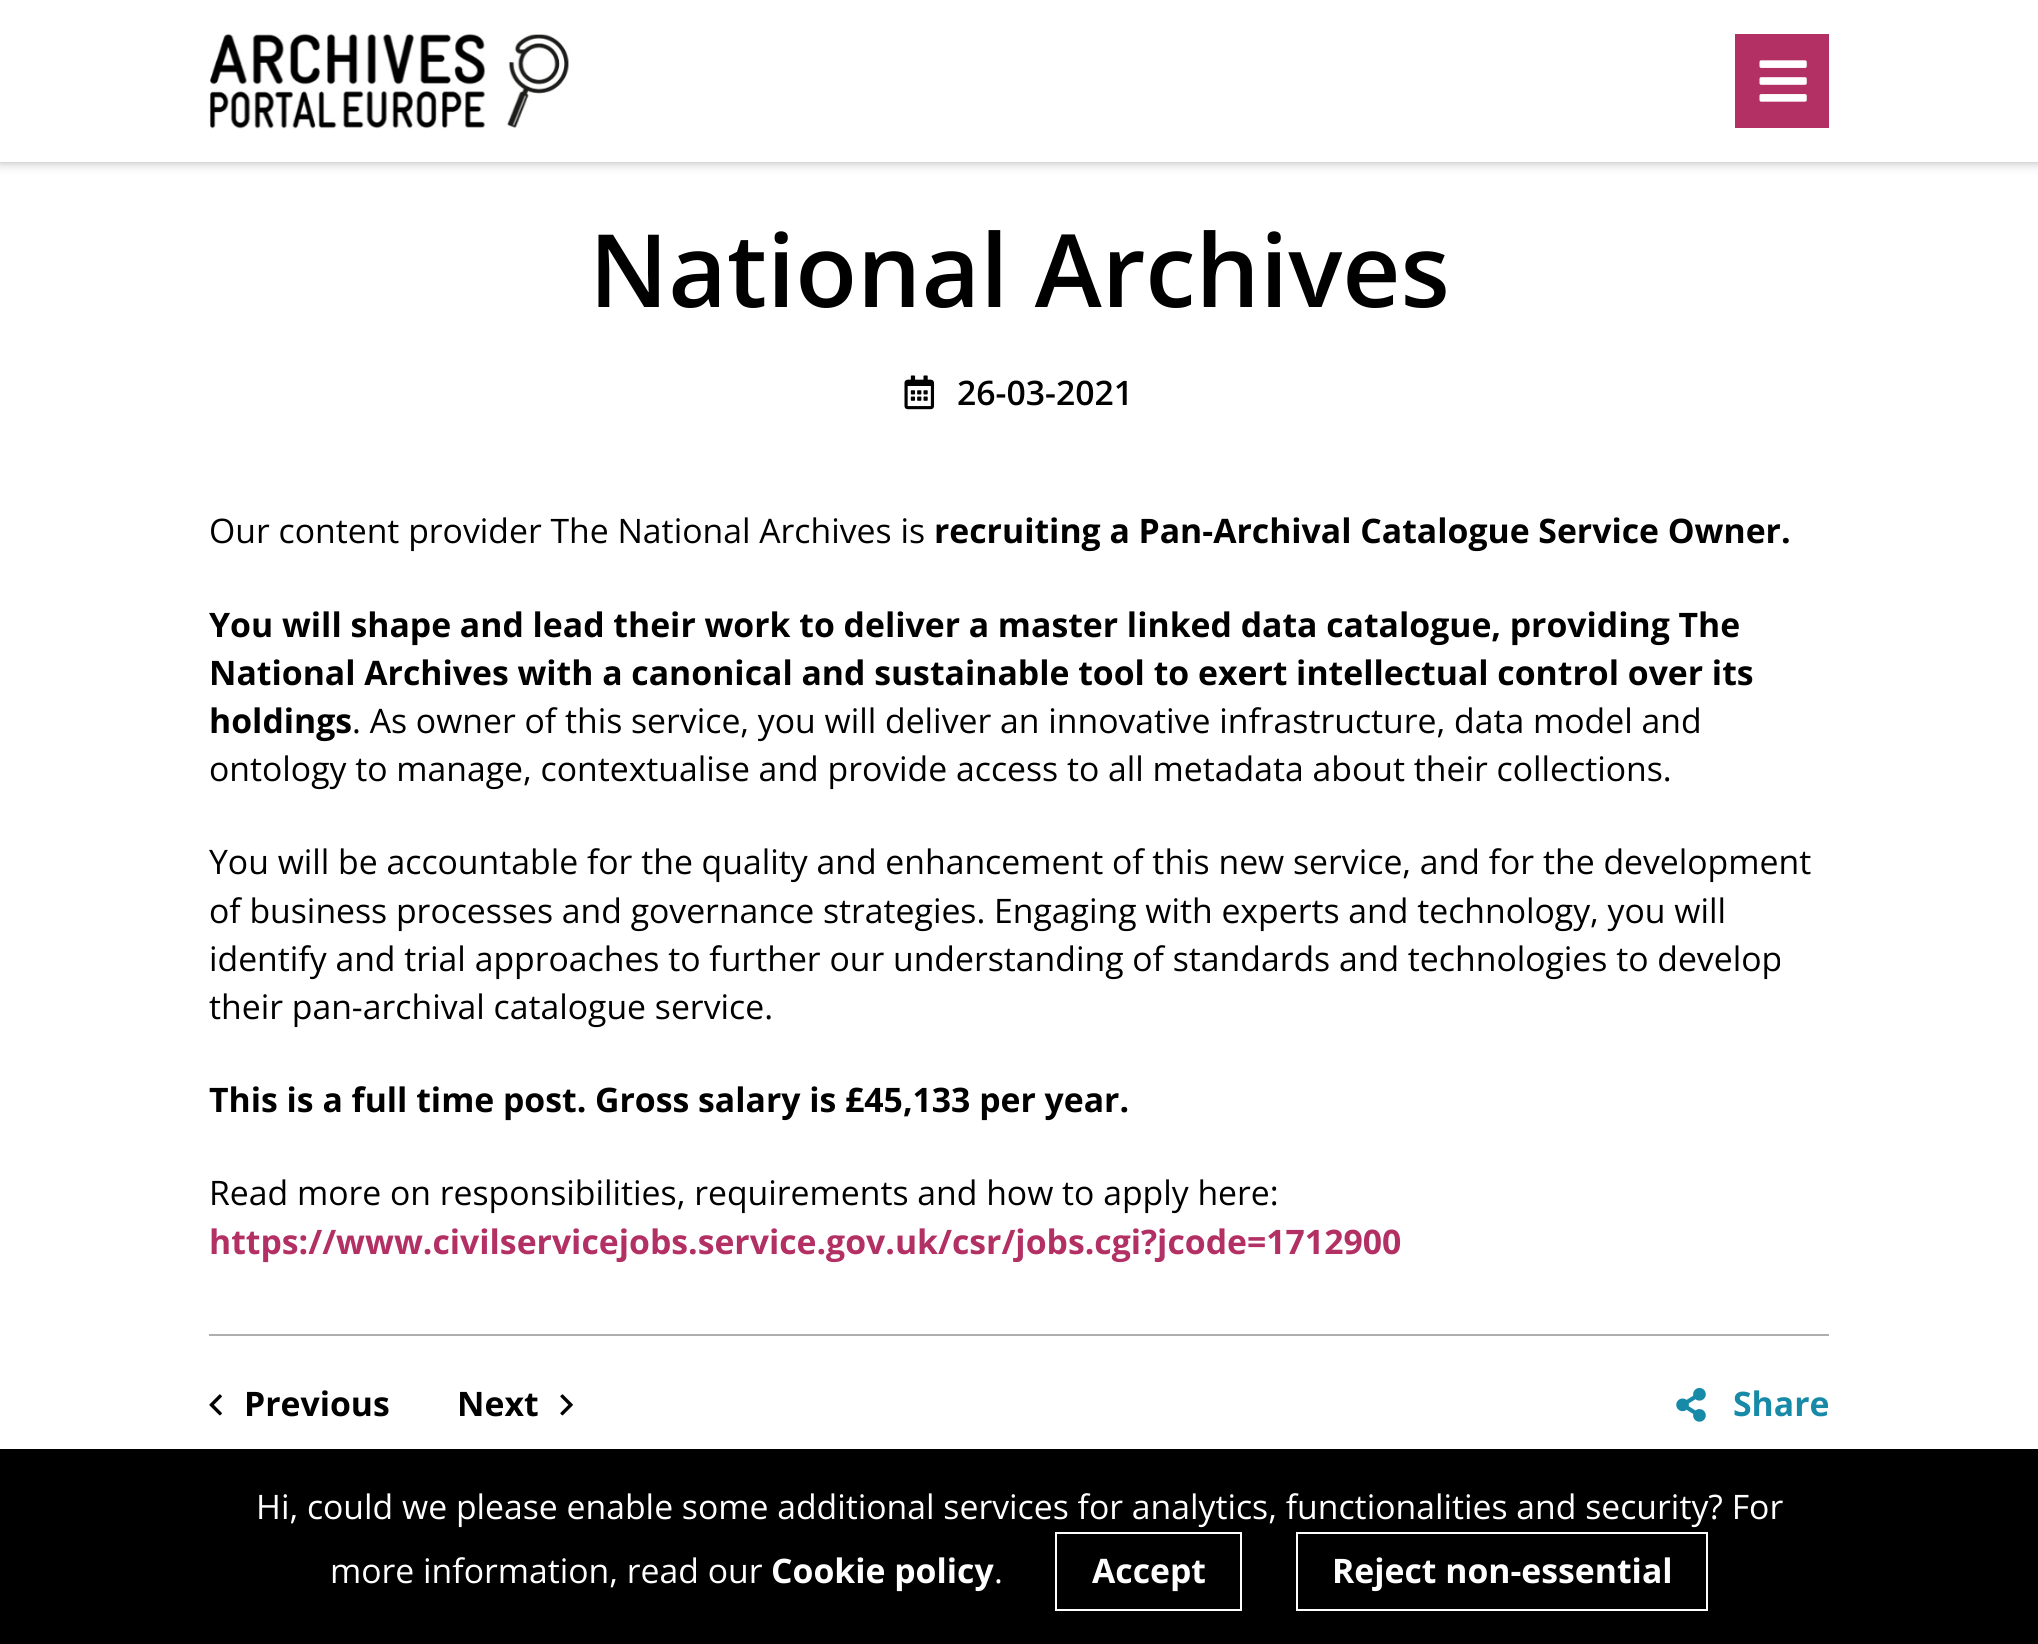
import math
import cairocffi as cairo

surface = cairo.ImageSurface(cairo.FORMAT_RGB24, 2038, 1644)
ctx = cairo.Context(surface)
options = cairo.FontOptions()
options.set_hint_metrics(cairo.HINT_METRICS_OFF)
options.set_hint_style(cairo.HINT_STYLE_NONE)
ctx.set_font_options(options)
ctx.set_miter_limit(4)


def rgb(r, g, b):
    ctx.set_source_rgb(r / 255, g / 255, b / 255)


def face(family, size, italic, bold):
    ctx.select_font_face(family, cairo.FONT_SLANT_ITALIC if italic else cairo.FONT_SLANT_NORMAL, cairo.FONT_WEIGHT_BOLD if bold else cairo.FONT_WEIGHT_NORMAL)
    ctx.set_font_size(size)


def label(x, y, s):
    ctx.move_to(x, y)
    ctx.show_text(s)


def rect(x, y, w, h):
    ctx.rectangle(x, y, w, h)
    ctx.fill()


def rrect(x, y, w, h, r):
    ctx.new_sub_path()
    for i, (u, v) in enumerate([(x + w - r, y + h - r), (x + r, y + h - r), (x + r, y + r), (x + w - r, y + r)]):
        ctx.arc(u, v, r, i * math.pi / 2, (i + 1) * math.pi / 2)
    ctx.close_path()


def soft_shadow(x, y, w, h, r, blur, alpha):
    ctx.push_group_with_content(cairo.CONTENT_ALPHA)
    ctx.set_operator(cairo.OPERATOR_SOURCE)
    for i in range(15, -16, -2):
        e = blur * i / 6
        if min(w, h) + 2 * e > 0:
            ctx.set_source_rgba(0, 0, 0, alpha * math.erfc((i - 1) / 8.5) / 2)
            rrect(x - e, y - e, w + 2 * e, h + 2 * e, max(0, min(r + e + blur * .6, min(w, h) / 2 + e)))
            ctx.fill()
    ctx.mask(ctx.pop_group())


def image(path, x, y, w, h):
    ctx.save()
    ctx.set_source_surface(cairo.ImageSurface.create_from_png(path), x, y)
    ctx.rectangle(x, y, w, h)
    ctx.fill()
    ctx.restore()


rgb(255, 255, 255)
ctx.paint()
rgb(174, 174, 174)
soft_shadow(0, 0, 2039, 162, 0, 5.5, 1)
rgb(255, 255, 255)
rect(0, 0, 2038, 162)
image('image0.png', 209, 33, 360, 96)
rgb(178, 48, 99)
rect(1735, 34, 94, 94)
image('image1.png', 1759, 60, 48, 42)
face('Open Sans SemiBold', 101.25, 0, 0)
rgb(0, 0, 0)
label(589, 307, 'National Archives')
image('image2.png', 904, 375, 31, 35)
face('Open Sans SemiBold', 33.75, 0, 0)
label(957, 405, '26-03-2021')
face('Open Sans', 33.75, 0, 0)
label(209, 543, 'Our content provider The National Archives is')
face('Open Sans', 33.75, 0, 1)
label(934, 543, 'recruiting a Pan-Archival Catalogue Service Owner.')
label(209, 637, 'You will shape and lead their work to deliver a master linked data catalogue, providing The')
label(209, 685, 'National Archives with a canonical and sustainable tool to exert intellectual control over its')
label(209, 733, 'holdings')
face('Open Sans', 33.75, 0, 0)
label(352, 733, '. As owner of this service, you will deliver an innovative infrastructure, data model and')
label(209, 781, 'ontology to manage, contextualise and provide access to all metadata about their collections.')
label(209, 874, 'You will be accountable for the quality and enhancement of this new service, and for the development')
label(209, 923, 'of business processes and governance strategies. Engaging with experts and technology, you will')
label(209, 971, 'identify and trial approaches to further our understanding of standards and technologies to develop')
label(209, 1019, 'their pan-archival catalogue service.')
face('Open Sans', 33.75, 0, 1)
label(209, 1112, 'This is a full time post. Gross salary is £45,133 per year.')
face('Open Sans', 33.75, 0, 0)
label(209, 1205, 'Read more on responsibilities, requirements and how to apply here:')
face('Open Sans', 33.75, 0, 1)
rgb(178, 48, 99)
label(209, 1254, 'https://www.civilservicejobs.service.gov.uk/csr/jobs.cgi?jcode=1712900')
rgb(174, 174, 174)
rect(209, 1334, 1620, 2)
image('image3.png', 209, 1394, 13, 22)
rgb(0, 0, 0)
label(244, 1416, 'Previous')
label(457, 1416, 'Next')
image('image4.png', 560, 1394, 13, 22)
image('image5.png', 1676, 1388, 30, 34)
rgb(23, 138, 168)
label(1733, 1416, 'Share')
rgb(0, 0, 0)
rect(0, 1449, 2038, 195)
face('Open Sans', 33.75, 0, 0)
rgb(255, 255, 255)
label(256, 1519, 'Hi, could we please enable some additional services for analytics, functionalities and security? For')
label(330, 1583, 'more information, read our')
face('Open Sans', 33.75, 0, 1)
label(771, 1583, 'Cookie policy')
face('Open Sans', 33.75, 0, 0)
label(994, 1583, '.')
ctx.rectangle(1056, 1533, 185, 77)
ctx.stroke()
face('Open Sans', 33.75, 0, 1)
label(1092, 1583, 'Accept')
ctx.rectangle(1297, 1533, 410, 77)
ctx.stroke()
label(1332, 1583, 'Reject non-essential')
surface.write_to_png('render.png')
